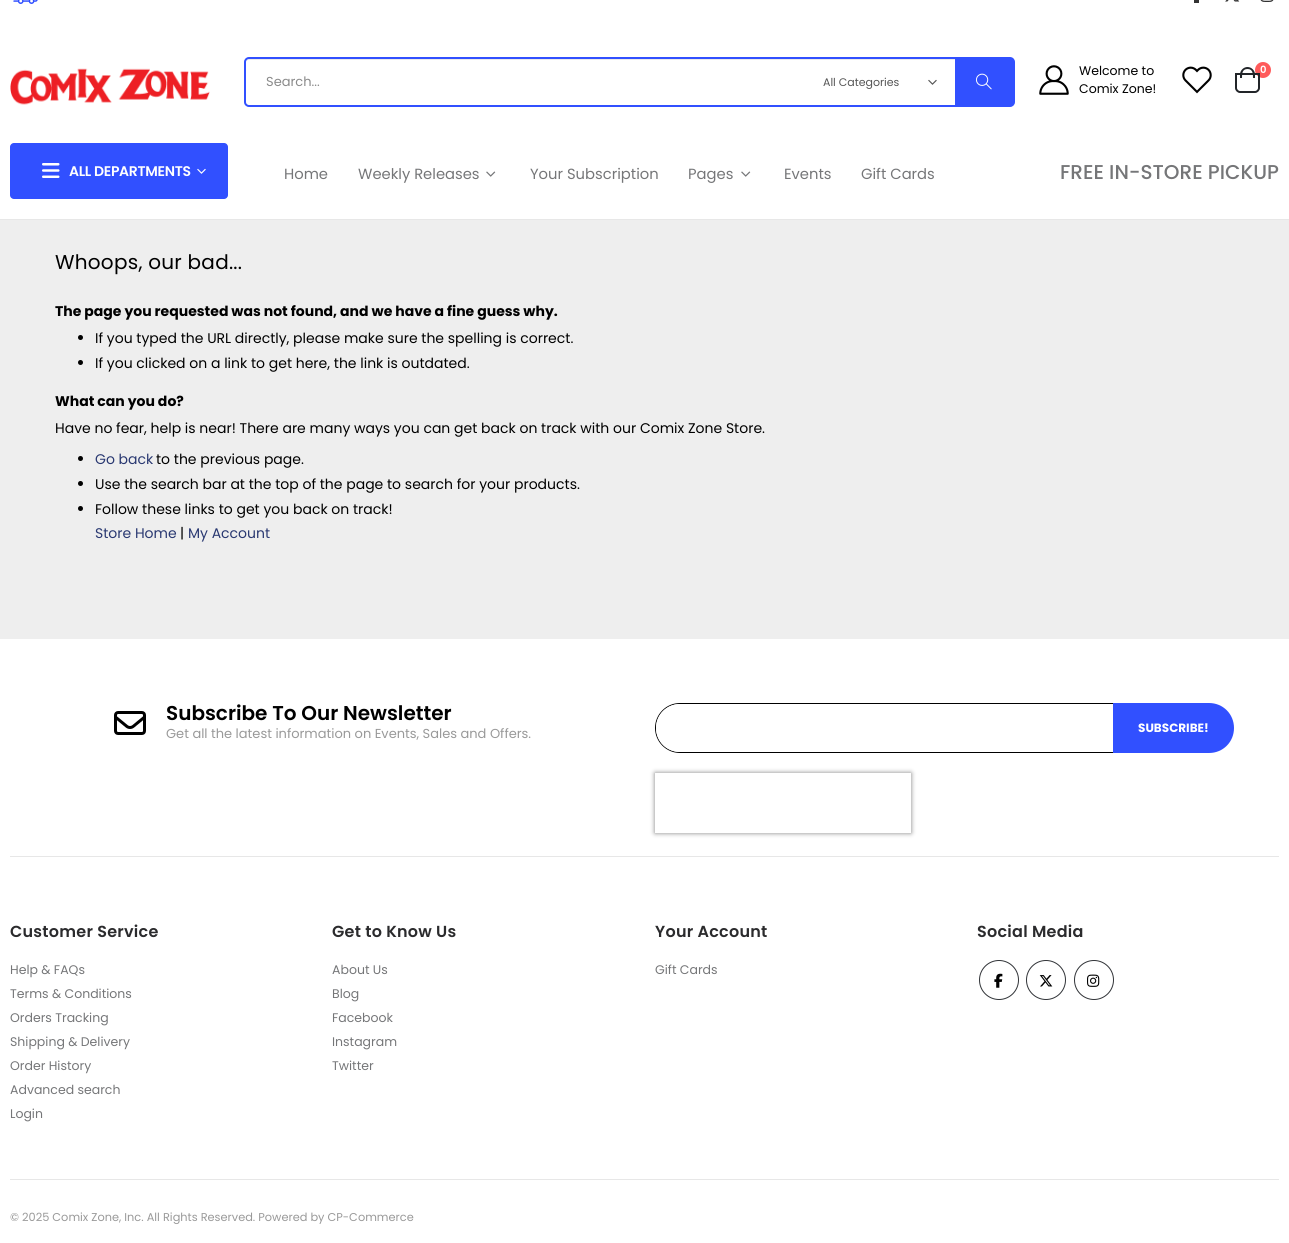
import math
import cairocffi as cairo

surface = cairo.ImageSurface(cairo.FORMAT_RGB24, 1289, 1243)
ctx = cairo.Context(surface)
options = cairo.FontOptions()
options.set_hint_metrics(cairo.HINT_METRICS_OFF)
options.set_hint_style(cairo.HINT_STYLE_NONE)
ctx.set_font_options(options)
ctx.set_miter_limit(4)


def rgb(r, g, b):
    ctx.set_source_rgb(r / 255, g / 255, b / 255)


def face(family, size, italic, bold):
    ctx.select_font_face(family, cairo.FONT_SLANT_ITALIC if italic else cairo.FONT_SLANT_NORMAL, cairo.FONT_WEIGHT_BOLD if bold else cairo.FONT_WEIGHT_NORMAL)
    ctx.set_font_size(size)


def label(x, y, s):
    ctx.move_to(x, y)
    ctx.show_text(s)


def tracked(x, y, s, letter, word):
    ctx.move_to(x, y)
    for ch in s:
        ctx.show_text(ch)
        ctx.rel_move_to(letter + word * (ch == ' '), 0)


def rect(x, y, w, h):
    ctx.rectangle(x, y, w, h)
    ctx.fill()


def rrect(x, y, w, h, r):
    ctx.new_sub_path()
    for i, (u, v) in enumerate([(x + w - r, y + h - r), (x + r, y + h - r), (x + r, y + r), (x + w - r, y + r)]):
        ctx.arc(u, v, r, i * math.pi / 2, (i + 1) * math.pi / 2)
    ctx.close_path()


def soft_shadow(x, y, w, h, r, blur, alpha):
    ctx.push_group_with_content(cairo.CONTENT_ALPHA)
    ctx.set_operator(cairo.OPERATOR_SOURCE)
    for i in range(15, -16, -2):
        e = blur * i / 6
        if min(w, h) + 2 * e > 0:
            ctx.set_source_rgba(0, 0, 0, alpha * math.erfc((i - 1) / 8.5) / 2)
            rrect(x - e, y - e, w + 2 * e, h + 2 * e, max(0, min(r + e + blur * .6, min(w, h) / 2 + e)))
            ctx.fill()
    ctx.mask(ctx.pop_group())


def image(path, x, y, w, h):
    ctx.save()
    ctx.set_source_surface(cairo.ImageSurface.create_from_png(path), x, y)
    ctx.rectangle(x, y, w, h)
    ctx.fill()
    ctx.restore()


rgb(238, 238, 238)
ctx.paint()
rgb(255, 255, 255)
rect(0, 0, 1289, 219)
image('image0.png', 13, 0, 25, 4)
rgb(51, 51, 51)
rect(1194, 0, 5, 3)
image('image1.png', 1225, 0, 15, 2)
image('image2.png', 1260, 0, 14, 2)
image('image3.png', 10, 68, 200, 37)
rgb(235, 235, 235)
ctx.new_path()
ctx.move_to(249, 60)
ctx.line_to(1010, 60)
ctx.curve_to(1012, 60, 1013, 61, 1013, 63)
ctx.curve_to(1013, 61, 1012, 59, 1010, 59)
ctx.line_to(249, 59)
ctx.curve_to(247, 59, 246, 61, 246, 63)
ctx.curve_to(246, 61, 247, 60, 249, 60)
ctx.close_path()
ctx.fill()
rrect(245, 58, 769, 48, 4)
rgb(49, 80, 255)
ctx.stroke()
face('Poppins', 13, 0, 0)
rgb(138, 138, 138)
label(266, 86, 'Search...')
face('Poppins', 11, 0, 0)
rgb(85, 85, 85)
label(823, 86, 'All Categories')
image('image4.png', 928, 79, 9, 6)
rgb(49, 80, 255)
rect(955, 59, 58, 46)
image('image5.png', 976, 73, 16, 17)
image('image6.png', 1039, 65, 30, 30)
face('Poppins', 12.5, 0, 0)
rgb(0, 0, 0)
label(1079, 75, 'Welcome to')
label(1079, 93, 'Comix Zone!')
image('image7.png', 1182, 66, 30, 28)
rgb(255, 91, 91)
ctx.arc(1263, 70, 8, 0, 2 * math.pi)
ctx.fill()
ctx.new_path()
ctx.move_to(1236, 74)
ctx.line_to(1259, 74)
ctx.line_to(1259, 88)
ctx.curve_to(1259, 90, 1257, 92, 1255, 92)
ctx.line_to(1240, 92)
ctx.curve_to(1238, 92, 1236, 90, 1236, 88)
ctx.close_path()
rgb(34, 37, 41)
ctx.stroke()
ctx.set_fill_rule(cairo.FILL_RULE_EVEN_ODD)
ctx.new_path()
ctx.move_to(1247.5, 67)
ctx.curve_to(1251.5, 67, 1255, 70.5, 1255, 74.5)
ctx.line_to(1255, 78)
ctx.line_to(1240, 78)
ctx.line_to(1240, 74.5)
ctx.curve_to(1240, 70.5, 1243.5, 67, 1247.5, 67)
ctx.close_path()
ctx.move_to(1247.5, 69)
ctx.curve_to(1253, 69, 1253, 74, 1253, 78)
ctx.line_to(1242, 78)
ctx.curve_to(1242, 74, 1242, 69, 1247.5, 69)
ctx.close_path()
ctx.fill()
face('Poppins SemiBold', 10, 0, 0)
rgb(255, 255, 255)
label(1260, 73, '0')
rgb(231, 231, 231)
rect(0, 219, 1289, 1)
rgb(49, 80, 255)
rrect(10, 143, 218, 56, 4)
ctx.fill()
image('image8.png', 42, 163, 18, 15)
face('Poppins SemiBold', 14, 0, 0)
rgb(255, 255, 255)
tracked(69, 176, 'ALL DEPARTMENTS', -0.3, 0)
image('image9.png', 197, 168, 9, 6)
face('Poppins', 14.75, 0, 0)
rgb(117, 118, 120)
label(284, 179, 'Home')
label(358, 179, 'Weekly Releases')
image('image10.png', 486, 171, 10, 6)
label(530, 179, 'Your Subscription')
label(688, 179, 'Pages')
image('image10.png', 741, 171, 10, 6)
label(784, 179, 'Events')
label(861, 179, 'Gift Cards')
face('Poppins Medium', 20, 0, 0)
label(1060, 179, 'FREE IN-STORE PICKUP')
face('Poppins', 20, 0, 0)
rgb(0, 0, 0)
tracked(55, 269, 'Whoops, our bad...', 0.25, 0)
face('Poppins', 14, 0, 1)
label(55, 316, 'The page you requested was not found, and we have a fine guess why.')
ctx.new_path()
ctx.arc(80.5, 337.5, 2.5, 0, 2 * math.pi)
ctx.fill()
face('Poppins', 14, 0, 0)
label(95, 343, 'If you typed the URL directly, please make sure the spelling is correct.')
ctx.new_path()
ctx.arc(80.5, 362.5, 2.5, 0, 2 * math.pi)
ctx.fill()
label(95, 368, 'If you clicked on a link to get here, the link is outdated.')
face('Poppins', 14, 0, 1)
label(55, 406, 'What can you do?')
face('Poppins', 14, 0, 0)
label(55, 433, 'Have no fear, help is near! There are many ways you can get back on track with our Comix Zone Store.')
ctx.new_path()
ctx.arc(80.5, 458.5, 2.5, 0, 2 * math.pi)
ctx.fill()
rgb(41, 56, 113)
label(95, 464, 'Go back')
rgb(0, 0, 0)
label(156, 464, 'to the previous page.')
ctx.new_path()
ctx.arc(80.5, 483.5, 2.5, 0, 2 * math.pi)
ctx.fill()
label(95, 489, 'Use the search bar at the top of the page to search for your products.')
ctx.new_path()
ctx.arc(80.5, 508.5, 2.5, 0, 2 * math.pi)
ctx.fill()
label(95, 514, 'Follow these links to get you back on track!')
rgb(41, 56, 113)
label(95, 538, 'Store Home')
rgb(0, 0, 0)
label(180, 538, '|')
rgb(41, 56, 113)
label(188, 538, 'My Account')
rgb(255, 255, 255)
rect(0, 639, 1289, 604)
image('image11.png', 114, 711, 32, 24)
face('Poppins SemiBold', 20, 0, 0)
rgb(0, 0, 0)
label(166, 720, 'Subscribe To Our Newsletter')
face('Poppins', 13, 0, 0)
rgb(153, 153, 153)
label(166, 738, 'Get all the latest information on Events, Sales and Offers.')
rrect(655.5, 703.5, 482, 49, 24.5)
rgb(0, 0, 0)
ctx.set_line_width(1)
ctx.stroke()
rgb(255, 255, 255)
ctx.new_path()
ctx.move_to(680, 704)
ctx.line_to(1137, 704)
ctx.line_to(1137, 752)
ctx.line_to(680, 752)
ctx.curve_to(666.5, 752, 656, 741.5, 656, 728)
ctx.curve_to(656, 714.5, 666.5, 704, 680, 704)
ctx.close_path()
ctx.fill()
rgb(49, 80, 255)
ctx.new_path()
ctx.move_to(1113, 703)
ctx.line_to(1209, 703)
ctx.curve_to(1223, 703, 1234, 714, 1234, 728)
ctx.curve_to(1234, 742, 1223, 753, 1209, 753)
ctx.line_to(1113, 753)
ctx.close_path()
ctx.fill()
face('Poppins', 12, 0, 1)
rgb(255, 255, 255)
label(1138, 732, 'SUBSCRIBE!')
ctx.save()
ctx.new_path()
ctx.move_to(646, 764)
ctx.line_to(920, 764)
ctx.line_to(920, 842)
ctx.line_to(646, 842)
ctx.close_path()
ctx.move_to(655, 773)
ctx.line_to(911, 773)
ctx.line_to(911, 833)
ctx.line_to(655, 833)
ctx.close_path()
ctx.clip()
rgb(128, 128, 128)
soft_shadow(655, 773, 256, 60, 0, 2.5, 1)
ctx.restore()
rgb(231, 231, 231)
rect(10, 856, 1269, 1)
face('Poppins SemiBold', 16, 0, 0)
rgb(43, 43, 45)
tracked(10, 937, 'Customer Service', 0.25, 0)
face('Poppins', 12.5, 0, 0)
rgb(117, 118, 120)
label(10, 974, 'Help & FAQs')
label(10, 998, 'Terms & Conditions')
label(10, 1022, 'Orders Tracking')
label(10, 1046, 'Shipping & Delivery')
label(10, 1070, 'Order History')
label(10, 1094, 'Advanced search')
label(10, 1118, 'Login')
face('Poppins SemiBold', 16, 0, 0)
rgb(43, 43, 45)
tracked(332, 937, 'Get to Know Us', 0.25, 0)
face('Poppins', 12.5, 0, 0)
rgb(117, 118, 120)
label(332, 974, 'About Us')
label(332, 998, 'Blog')
label(332, 1022, 'Facebook')
label(332, 1046, 'Instagram')
label(332, 1070, 'Twitter')
face('Poppins SemiBold', 16, 0, 0)
rgb(43, 43, 45)
tracked(655, 937, 'Your Account', 0.25, 0)
face('Poppins', 12.5, 0, 0)
rgb(117, 118, 120)
label(655, 974, 'Gift Cards')
face('Poppins SemiBold', 16, 0, 0)
rgb(43, 43, 45)
tracked(977, 937, 'Social Media', 0.25, 0)
ctx.new_path()
ctx.arc(999, 980, 19.5, 0, 2 * math.pi)
rgb(49, 52, 56)
ctx.stroke()
image('image12.png', 994, 973, 9, 15)
ctx.arc(1046, 980, 19.5, 0, 2 * math.pi)
ctx.stroke()
image('image13.png', 1039, 975, 14, 12)
ctx.arc(1094, 980, 19.5, 0, 2 * math.pi)
ctx.stroke()
image('image14.png', 1087, 974, 13, 13)
rgb(231, 231, 231)
rect(10, 1179, 1269, 1)
face('Poppins', 11.35, 0, 0)
rgb(153, 153, 153)
label(10, 1221, '© 2025 Comix Zone, Inc. All Rights Reserved. Powered by CP-Commerce')
surface.write_to_png('render.png')
